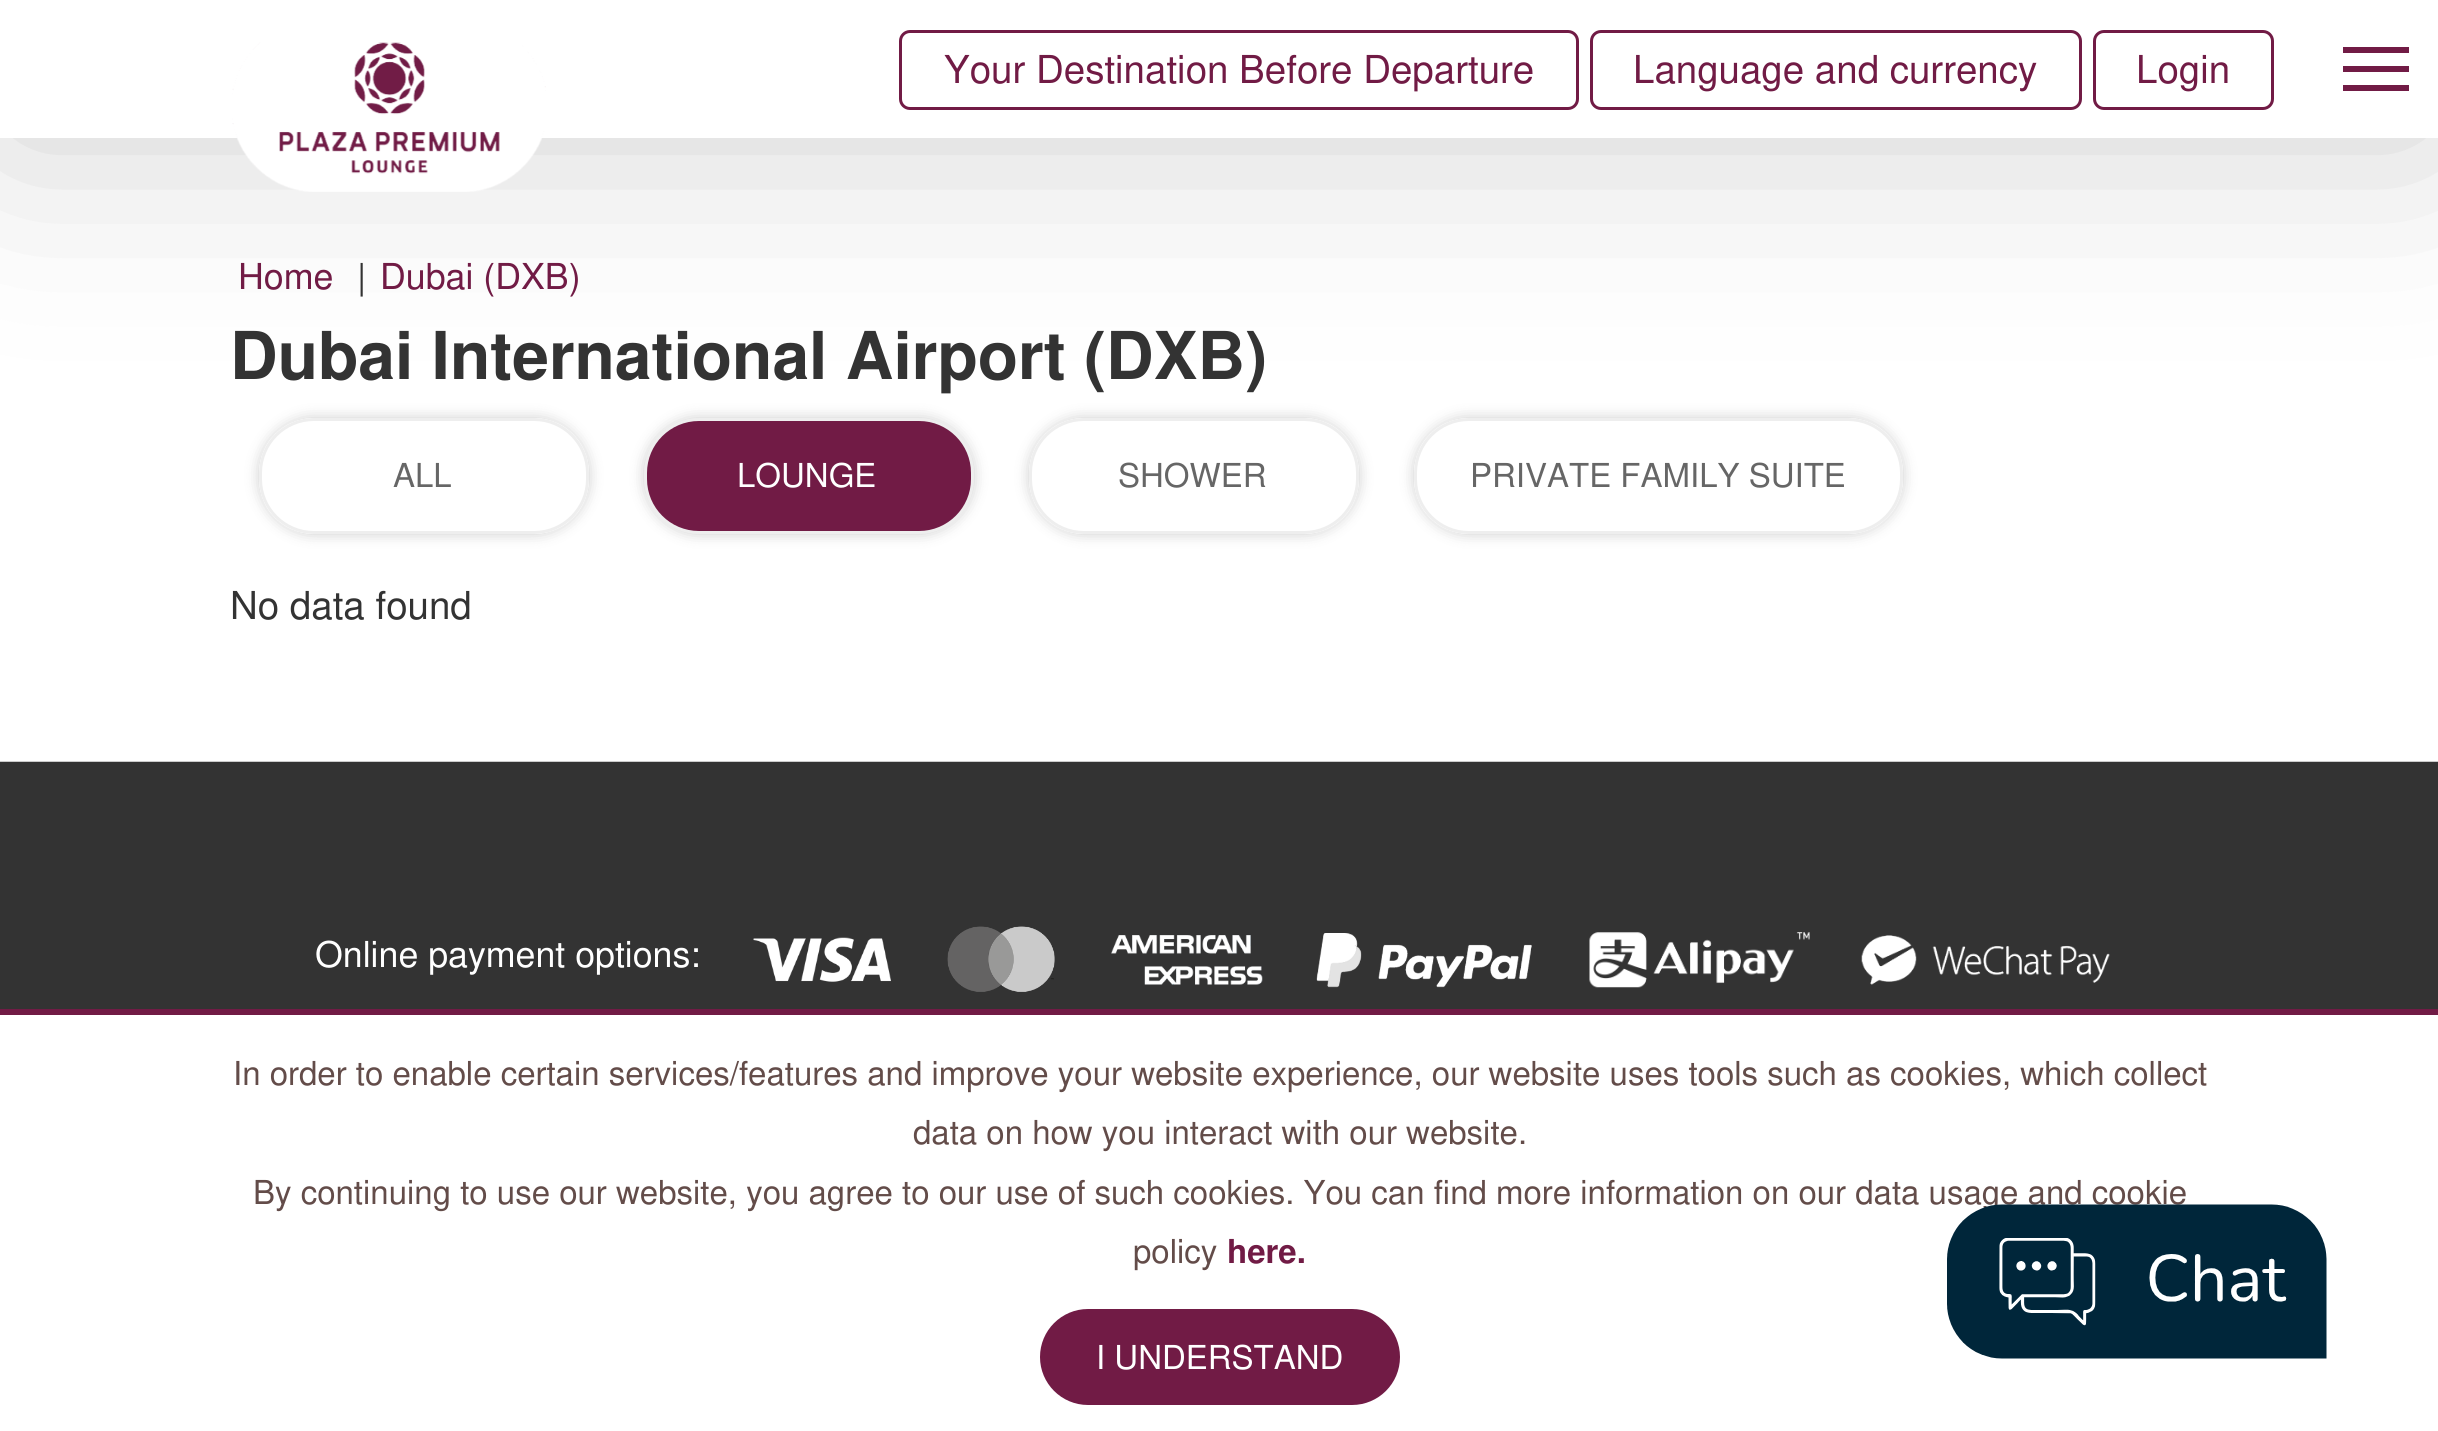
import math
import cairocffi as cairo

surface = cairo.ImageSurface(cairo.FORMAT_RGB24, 2438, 1431)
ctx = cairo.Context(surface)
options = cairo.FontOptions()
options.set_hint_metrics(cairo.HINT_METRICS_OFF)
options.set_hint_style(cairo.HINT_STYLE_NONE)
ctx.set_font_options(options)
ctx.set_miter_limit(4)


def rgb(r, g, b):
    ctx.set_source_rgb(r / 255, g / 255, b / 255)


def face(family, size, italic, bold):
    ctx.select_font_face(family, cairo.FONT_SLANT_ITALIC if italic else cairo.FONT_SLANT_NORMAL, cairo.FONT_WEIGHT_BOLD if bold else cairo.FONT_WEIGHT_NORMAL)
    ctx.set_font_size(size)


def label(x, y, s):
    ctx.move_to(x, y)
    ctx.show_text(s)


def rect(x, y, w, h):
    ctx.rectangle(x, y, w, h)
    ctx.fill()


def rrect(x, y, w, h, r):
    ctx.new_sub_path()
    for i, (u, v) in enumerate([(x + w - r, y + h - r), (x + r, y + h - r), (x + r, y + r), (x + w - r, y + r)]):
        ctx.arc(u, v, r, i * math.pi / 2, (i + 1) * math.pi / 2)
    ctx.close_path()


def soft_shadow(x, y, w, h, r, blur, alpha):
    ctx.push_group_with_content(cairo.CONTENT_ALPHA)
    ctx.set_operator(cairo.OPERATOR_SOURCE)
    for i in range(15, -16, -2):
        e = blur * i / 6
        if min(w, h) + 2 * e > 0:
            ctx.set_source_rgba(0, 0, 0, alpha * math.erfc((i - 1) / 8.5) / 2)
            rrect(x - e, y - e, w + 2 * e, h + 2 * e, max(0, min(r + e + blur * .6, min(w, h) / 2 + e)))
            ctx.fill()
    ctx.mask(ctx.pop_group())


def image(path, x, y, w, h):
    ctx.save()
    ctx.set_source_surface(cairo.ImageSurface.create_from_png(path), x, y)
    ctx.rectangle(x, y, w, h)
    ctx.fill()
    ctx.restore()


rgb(255, 255, 255)
ctx.paint()
ctx.save()
ctx.set_fill_rule(cairo.FILL_RULE_EVEN_ODD)
ctx.new_path()
ctx.move_to(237, 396)
ctx.line_to(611, 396)
ctx.line_to(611, 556)
ctx.line_to(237, 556)
ctx.close_path()
ctx.move_to(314, 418)
ctx.line_to(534, 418)
ctx.curve_to(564.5, 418, 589, 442.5, 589, 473)
ctx.line_to(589, 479)
ctx.curve_to(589, 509.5, 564.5, 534, 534, 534)
ctx.line_to(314, 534)
ctx.curve_to(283.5, 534, 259, 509.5, 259, 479)
ctx.line_to(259, 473)
ctx.curve_to(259, 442.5, 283.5, 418, 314, 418)
ctx.close_path()
ctx.clip()
rgb(0, 0, 0)
soft_shadow(259, 418, 330, 116, 55, 7, 0.2)
ctx.restore()
rrect(260.5, 419.5, 327, 113, 53.5)
rgb(238, 238, 238)
ctx.set_line_width(3)
ctx.stroke()
rgb(0, 0, 0)
soft_shadow(644, 418, 330, 116, 55, 7, 0.2)
rgb(113, 27, 69)
rrect(645.5, 419.5, 327, 113, 53.5)
ctx.fill_preserve()
rgb(238, 238, 238)
ctx.stroke()
ctx.save()
ctx.set_fill_rule(cairo.FILL_RULE_EVEN_ODD)
ctx.new_path()
ctx.move_to(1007, 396)
ctx.line_to(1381, 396)
ctx.line_to(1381, 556)
ctx.line_to(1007, 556)
ctx.close_path()
ctx.move_to(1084, 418)
ctx.line_to(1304, 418)
ctx.curve_to(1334.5, 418, 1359, 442.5, 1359, 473)
ctx.line_to(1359, 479)
ctx.curve_to(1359, 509.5, 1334.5, 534, 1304, 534)
ctx.line_to(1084, 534)
ctx.curve_to(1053.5, 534, 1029, 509.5, 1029, 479)
ctx.line_to(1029, 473)
ctx.curve_to(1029, 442.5, 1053.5, 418, 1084, 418)
ctx.close_path()
ctx.clip()
rgb(0, 0, 0)
soft_shadow(1029, 418, 330, 116, 55, 7, 0.2)
ctx.restore()
rrect(1030.5, 419.5, 327, 113, 53.5)
ctx.stroke()
ctx.save()
ctx.set_fill_rule(cairo.FILL_RULE_EVEN_ODD)
ctx.new_path()
ctx.move_to(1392, 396)
ctx.line_to(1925, 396)
ctx.line_to(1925, 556)
ctx.line_to(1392, 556)
ctx.close_path()
ctx.move_to(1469, 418)
ctx.line_to(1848, 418)
ctx.curve_to(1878.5, 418, 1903, 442.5, 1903, 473)
ctx.line_to(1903, 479)
ctx.curve_to(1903, 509.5, 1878.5, 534, 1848, 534)
ctx.line_to(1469, 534)
ctx.curve_to(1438.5, 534, 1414, 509.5, 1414, 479)
ctx.line_to(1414, 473)
ctx.curve_to(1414, 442.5, 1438.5, 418, 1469, 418)
ctx.close_path()
ctx.clip()
rgb(0, 0, 0)
soft_shadow(1414, 418, 489, 116, 55, 7, 0.2)
ctx.restore()
rrect(1415.5, 419.5, 486, 113, 53.5)
ctx.stroke()
rgb(0, 0, 0)
soft_shadow(0, 0, 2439, 138, 0, 103, 0.2)
rgb(255, 255, 255)
rect(0, 0, 2438, 138)
image('image0.png', 232, 42, 314, 150)
rrect(900.5, 31.5, 677, 77, 9.5)
rgb(113, 27, 69)
ctx.stroke()
face('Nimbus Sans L', 38.5, 0, 0)
label(944, 83, 'Your Destination Before Departure')
rrect(1591.5, 31.5, 489, 77, 9.5)
ctx.stroke()
label(1633, 83, 'Language and currency')
rrect(2094.5, 31.5, 178, 77, 9.5)
ctx.stroke()
label(2136, 83, 'Login')
rect(2343, 66, 66, 6)
rect(2343, 47, 66, 6)
rect(2343, 85, 66, 6)
face('Nimbus Sans L', 35.75, 0, 0)
label(238, 289, 'Home')
rgb(51, 51, 51)
label(357, 289, '|')
rgb(113, 27, 69)
label(380, 289, 'Dubai (DXB)')
face('Nimbus Sans L', 66, 0, 1)
rgb(51, 51, 51)
label(230, 379, 'Dubai International Airport (DXB)')
face('Nimbus Sans L', 33, 0, 0)
rgb(102, 102, 102)
label(393, 487, 'ALL')
rgb(255, 255, 255)
label(737, 487, 'LOUNGE')
rgb(102, 102, 102)
label(1118, 487, 'SHOWER')
label(1470, 487, 'PRIVATE FAMILY SUITE')
face('Nimbus Sans L', 38.5, 0, 0)
rgb(51, 51, 51)
label(230, 619, 'No data found')
image('image1.png', 0, 761, 2438, 248)
face('Nimbus Sans L', 35.75, 0, 0)
rgb(255, 255, 255)
label(315, 967, 'Online payment options:')
image('image2.png', 753, 937, 138, 45)
image('image3.png', 947, 926, 108, 66)
image('image4.png', 1111, 935, 152, 50)
image('image5.png', 1316, 933, 216, 55)
image('image6.png', 1589, 932, 221, 56)
image('image7.png', 1861, 935, 249, 50)
rgb(113, 27, 69)
rect(0, 1009, 2438, 6)
face('Nimbus Sans L', 33, 0, 0)
rgb(99, 76, 73)
label(233, 1085, 'In order to enable certain services/features and improve your website experience, our website uses tools such as cookies, which collect')
label(913, 1144, 'data on how you interact with our website.')
label(253, 1204, 'By continuing to use our website, you agree to our use of such cookies. You can find more information on our data usage and cookie')
label(1133, 1263, 'policy')
face('Nimbus Sans L', 33, 0, 1)
rgb(113, 27, 69)
label(1227, 1263, 'here.')
rrect(1040, 1309, 360, 96, 48)
ctx.fill()
face('Nimbus Sans L', 33, 0, 0)
rgb(255, 255, 255)
label(1096, 1369, 'I UNDERSTAND')
image('image8.png', 1947, 1204, 380, 155)
surface.write_to_png('render.png')
